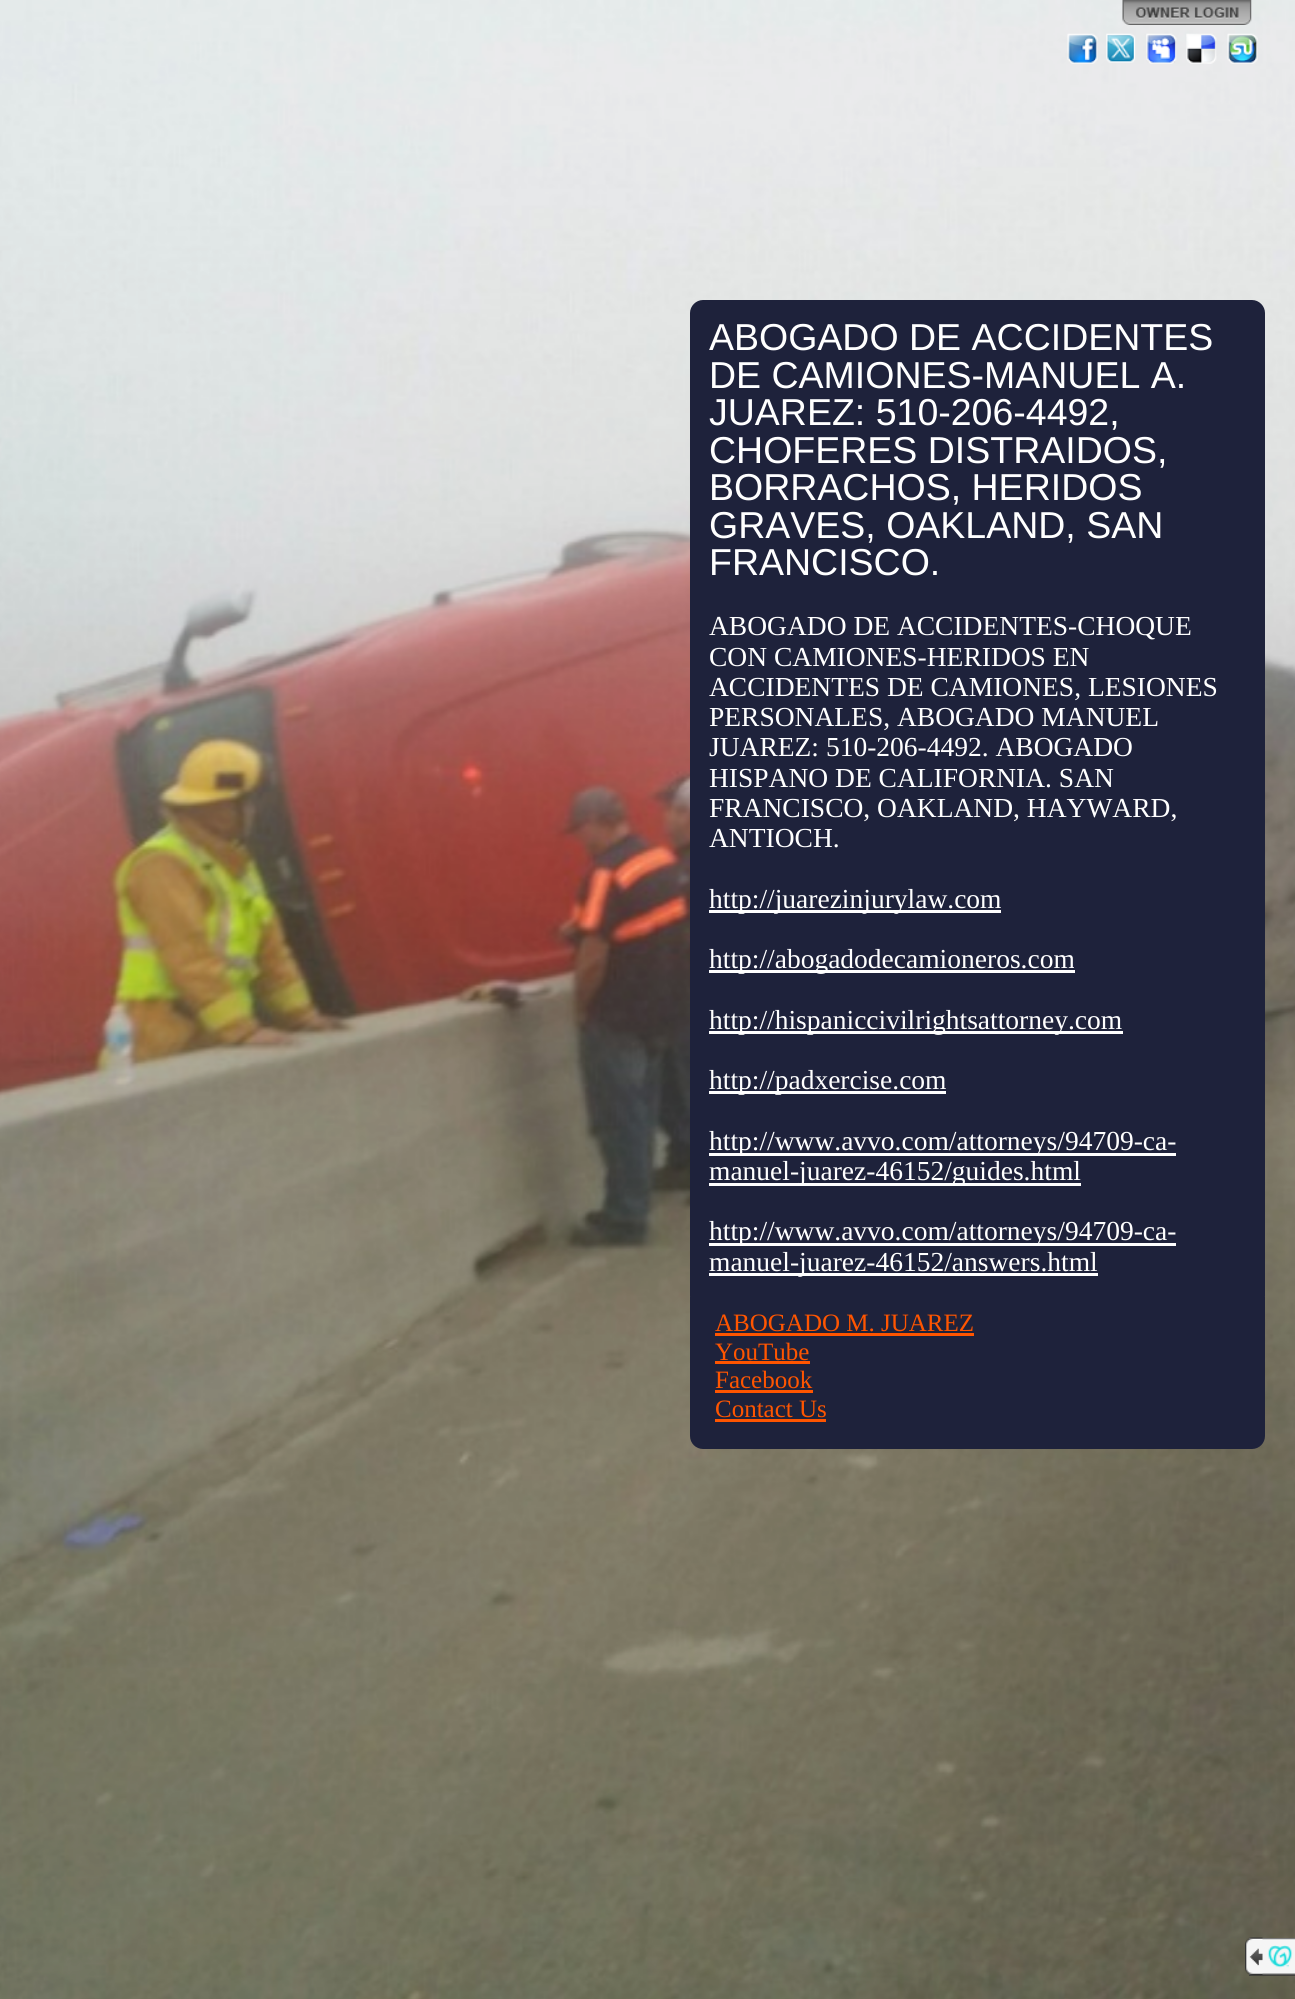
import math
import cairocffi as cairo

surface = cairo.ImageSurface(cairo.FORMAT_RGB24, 1295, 1999)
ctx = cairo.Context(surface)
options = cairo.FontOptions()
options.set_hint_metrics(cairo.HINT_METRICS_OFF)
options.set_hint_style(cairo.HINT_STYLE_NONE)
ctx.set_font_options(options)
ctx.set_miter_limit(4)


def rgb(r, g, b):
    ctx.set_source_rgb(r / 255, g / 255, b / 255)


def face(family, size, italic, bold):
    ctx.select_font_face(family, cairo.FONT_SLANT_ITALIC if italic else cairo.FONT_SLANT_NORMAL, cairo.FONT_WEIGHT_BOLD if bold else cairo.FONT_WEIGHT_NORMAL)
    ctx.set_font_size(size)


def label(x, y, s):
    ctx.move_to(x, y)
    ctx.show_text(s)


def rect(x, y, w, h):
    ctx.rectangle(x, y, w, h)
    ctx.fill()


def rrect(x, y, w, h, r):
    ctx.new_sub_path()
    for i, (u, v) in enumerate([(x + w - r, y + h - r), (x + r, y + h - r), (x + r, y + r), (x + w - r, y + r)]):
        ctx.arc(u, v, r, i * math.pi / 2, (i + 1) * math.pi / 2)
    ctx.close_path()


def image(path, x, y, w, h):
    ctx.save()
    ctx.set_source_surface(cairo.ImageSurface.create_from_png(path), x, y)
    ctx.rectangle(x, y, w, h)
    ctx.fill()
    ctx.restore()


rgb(255, 255, 255)
ctx.paint()
image('image0.png', 0, 0, 1295, 1999)
image('image1.png', 1122, 0, 130, 25)
image('image2.png', 1067, 33, 31, 31)
image('image3.png', 1106, 33, 30, 30)
image('image4.png', 1146, 33, 31, 31)
image('image5.png', 1186, 33, 31, 31)
image('image6.png', 1227, 33, 31, 31)
rgb(30, 34, 59)
ctx.new_path()
ctx.move_to(703, 300)
ctx.line_to(1252, 300)
ctx.curve_to(1259, 300, 1265, 306, 1265, 313)
ctx.line_to(1265, 1296)
ctx.line_to(690, 1296)
ctx.line_to(690, 313)
ctx.curve_to(690, 306, 696, 300, 703, 300)
ctx.close_path()
ctx.fill()
face('Liberation Sans', 37.5, 0, 0)
rgb(255, 255, 255)
label(709, 350, 'ABOGADO DE ACCIDENTES')
label(709, 388, 'DE CAMIONES-MANUEL A.')
label(709, 425, 'JUAREZ: 510-206-4492,')
label(709, 463, 'CHOFERES DISTRAIDOS,')
label(709, 500, 'BORRACHOS, HERIDOS')
label(709, 538, 'GRAVES, OAKLAND, SAN')
label(709, 575, 'FRANCISCO.')
face('Liberation Serif', 27.5, 0, 0)
label(709, 635, 'ABOGADO DE ACCIDENTES-CHOQUE')
label(709, 666, 'CON CAMIONES-HERIDOS EN')
label(709, 696, 'ACCIDENTES DE CAMIONES, LESIONES')
label(709, 726, 'PERSONALES, ABOGADO MANUEL')
label(709, 756, 'JUAREZ: 510-206-4492. ABOGADO')
label(709, 787, 'HISPANO DE CALIFORNIA. SAN')
label(709, 817, 'FRANCISCO, OAKLAND, HAYWARD,')
label(709, 847, 'ANTIOCH.')
rect(709, 910, 292, 3)
label(709, 908, 'http://juarezinjurylaw.com')
rect(709, 970, 366, 3)
label(709, 968, 'http://abogadodecamioneros.com')
rect(709, 1031, 414, 3)
label(709, 1029, 'http://hispaniccivilrightsattorney.com')
rect(709, 1091, 237, 3)
label(709, 1089, 'http://padxercise.com')
rect(709, 1153, 467, 3)
label(709, 1150, 'http://www.avvo.com/attorneys/94709-ca-')
rect(709, 1183, 372, 3)
label(709, 1180, 'manuel-juarez-46152/guides.html')
rect(709, 1243, 467, 3)
label(709, 1240, 'http://www.avvo.com/attorneys/94709-ca-')
rect(709, 1273, 389, 3)
label(709, 1271, 'manuel-juarez-46152/answers.html')
rgb(30, 34, 59)
rrect(690, 1284, 575, 165, 13)
ctx.fill()
face('Liberation Serif', 25, 0, 0)
rgb(255, 85, 0)
label(715, 1331, 'ABOGADO M. JUAREZ')
rect(715, 1333, 259, 3)
label(715, 1360, 'YouTube')
rect(715, 1361, 95, 3)
label(715, 1388, 'Facebook')
rect(715, 1390, 98, 3)
label(715, 1417, 'Contact Us')
rect(715, 1419, 111, 3)
image('image7.png', 1249, 1938, 46, 38)
image('image8.png', 1249, 1974, 46, 2)
image('image9.png', 1245, 1937, 18, 38)
image('image10.png', 1267, 1945, 26, 23)
surface.write_to_png('render.png')
